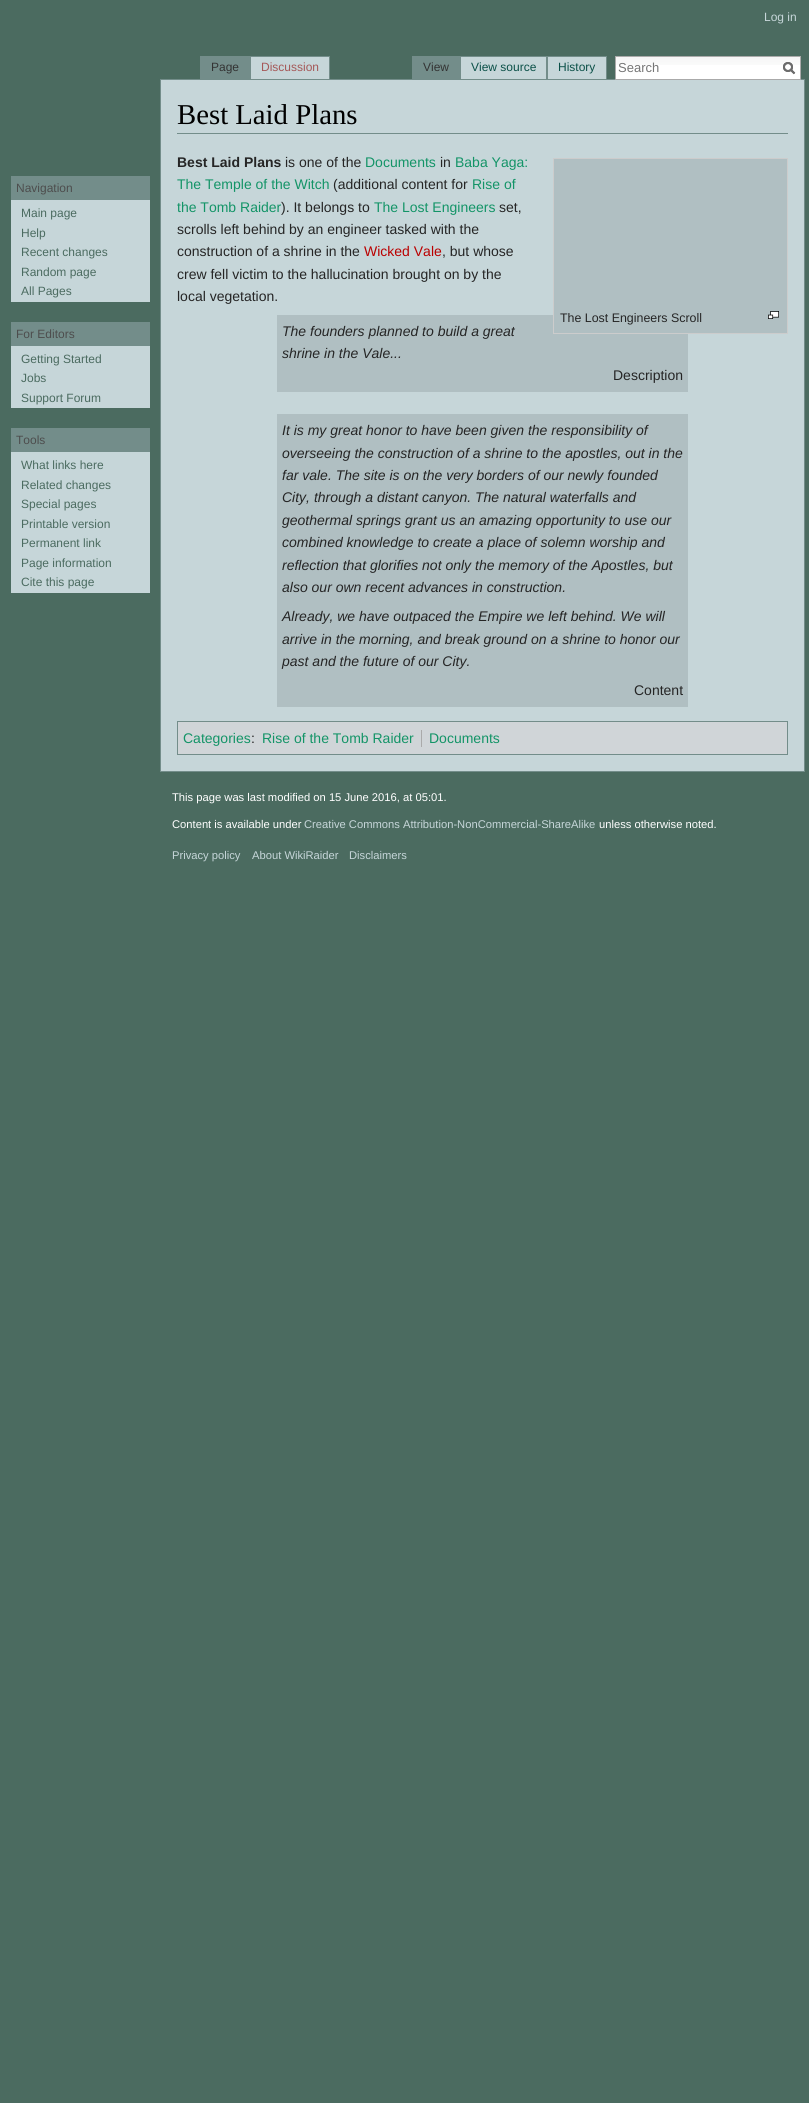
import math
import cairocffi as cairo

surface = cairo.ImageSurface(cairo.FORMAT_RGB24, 809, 2103)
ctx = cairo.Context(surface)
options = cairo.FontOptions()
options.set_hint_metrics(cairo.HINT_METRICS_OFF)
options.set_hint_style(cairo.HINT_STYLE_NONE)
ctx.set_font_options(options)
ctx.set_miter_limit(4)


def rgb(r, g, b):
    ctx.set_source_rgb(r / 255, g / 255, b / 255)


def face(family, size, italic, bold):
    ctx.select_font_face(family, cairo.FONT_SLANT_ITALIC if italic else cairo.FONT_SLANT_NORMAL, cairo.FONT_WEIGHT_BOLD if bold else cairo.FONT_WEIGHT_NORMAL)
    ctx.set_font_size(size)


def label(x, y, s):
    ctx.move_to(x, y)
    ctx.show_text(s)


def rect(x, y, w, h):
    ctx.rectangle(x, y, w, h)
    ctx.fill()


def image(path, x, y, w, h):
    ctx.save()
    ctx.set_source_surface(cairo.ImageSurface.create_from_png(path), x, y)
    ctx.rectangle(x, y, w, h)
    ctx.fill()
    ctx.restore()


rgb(75, 107, 96)
ctx.paint()
face('Liberation Sans', 12, 0, 0)
rgb(198, 214, 217)
label(764, 21, 'Log in')
rgb(115, 141, 138)
rect(200, 56, 50, 23)
rgb(51, 51, 51)
label(211, 71, 'Page')
rgb(198, 214, 217)
ctx.rectangle(160.5, 79.5, 644, 692)
ctx.fill_preserve()
rgb(115, 141, 138)
ctx.set_line_width(1)
ctx.stroke()
rgb(198, 214, 217)
ctx.rectangle(250.5, 56.5, 79, 23)
ctx.fill_preserve()
rgb(115, 141, 138)
ctx.stroke()
rgb(165, 88, 88)
label(261, 71, 'Discussion')
rgb(115, 141, 138)
rect(412, 56, 48, 23)
rgb(51, 51, 51)
label(423, 71, 'View')
rgb(198, 214, 217)
ctx.rectangle(460.5, 56.5, 86, 23)
ctx.fill_preserve()
rgb(115, 141, 138)
ctx.stroke()
rgb(11, 80, 72)
label(471, 71, 'View source')
rgb(198, 214, 217)
ctx.rectangle(547.5, 56.5, 59, 23)
ctx.fill_preserve()
rgb(115, 141, 138)
ctx.stroke()
rgb(11, 80, 72)
label(558, 71, 'History')
rgb(255, 255, 255)
rect(616, 65, 184, 14)
image('image0.png', 616, 57, 184, 8)
ctx.rectangle(615.5, 56.5, 185, 23)
rgb(170, 170, 170)
ctx.stroke()
face('Liberation Sans', 13, 0, 0)
rgb(117, 117, 117)
label(618, 72, 'Search')
ctx.new_path()
ctx.move_to(794.5, 73.5)
ctx.line_to(790.5, 69.5)
rgb(108, 108, 108)
ctx.set_line_width(2)
ctx.stroke()
ctx.arc(788, 67, 4, 0, 2 * math.pi)
ctx.stroke()
ctx.new_path()
ctx.move_to(794.5, 73.5)
ctx.line_to(790.5, 69.5)
ctx.stroke()
ctx.arc(788, 67, 4, 0, 2 * math.pi)
ctx.stroke()
rgb(198, 214, 217)
rect(11, 200, 139, 102)
rgb(115, 141, 138)
rect(11, 176, 139, 24)
face('Liberation Sans', 12, 0, 0)
rgb(77, 77, 77)
label(16, 192, 'Navigation')
rgb(75, 107, 96)
label(21, 217, 'Main page')
label(21, 237, 'Help')
label(21, 256, 'Recent changes')
label(21, 276, 'Random page')
label(21, 295, 'All Pages')
rgb(198, 214, 217)
rect(11, 346, 139, 62)
rgb(115, 141, 138)
rect(11, 322, 139, 24)
rgb(77, 77, 77)
label(16, 338, 'For Editors')
rgb(75, 107, 96)
label(21, 363, 'Getting Started')
label(21, 382, 'Jobs')
label(21, 402, 'Support Forum')
rgb(198, 214, 217)
rect(11, 452, 139, 141)
rgb(115, 141, 138)
rect(11, 428, 139, 24)
rgb(77, 77, 77)
label(16, 444, 'Tools')
rgb(75, 107, 96)
label(21, 469, 'What links here')
label(21, 489, 'Related changes')
label(21, 508, 'Special pages')
label(21, 528, 'Printable version')
label(21, 547, 'Permanent link')
label(21, 567, 'Page information')
label(21, 586, 'Cite this page')
rgb(115, 141, 138)
rect(177, 133, 611, 1)
face('Liberation Serif', 28.75, 0, 0)
rgb(0, 0, 0)
label(177, 124, 'Best Laid Plans')
face('Liberation Sans', 14, 0, 1)
rgb(37, 37, 37)
label(177, 167, 'Best Laid Plans')
face('Liberation Sans', 14, 0, 0)
label(285, 167, 'is one of the')
rgb(19, 148, 103)
label(365, 167, 'Documents')
rgb(37, 37, 37)
label(440, 167, 'in')
rgb(19, 148, 103)
label(455, 167, 'Baba Yaga:')
label(177, 189, 'The Temple of the Witch')
rgb(37, 37, 37)
label(333, 189, '(additional content for')
rgb(19, 148, 103)
label(472, 189, 'Rise of')
label(177, 212, 'the Tomb Raider')
rgb(37, 37, 37)
label(281, 212, '). It belongs to')
rgb(19, 148, 103)
label(374, 212, 'The Lost Engineers')
rgb(37, 37, 37)
label(499, 212, 'set,')
label(177, 234, 'scrolls left behind by an engineer tasked with the')
label(177, 256, 'construction of a shrine in the')
rgb(186, 0, 0)
label(364, 256, 'Wicked Vale')
rgb(37, 37, 37)
label(442, 256, ', but whose')
label(177, 279, 'crew fell victim to the hallucination brought on by the')
label(177, 301, 'local vegetation.')
rgb(176, 191, 194)
rect(277, 315, 411, 77)
ctx.rectangle(553.5, 158.5, 234, 175)
ctx.fill_preserve()
rgb(204, 204, 204)
ctx.set_line_width(1)
ctx.stroke()
face('Liberation Sans', 12.4, 0, 0)
rgb(37, 37, 37)
label(560, 322, 'The Lost Engineers Scroll')
image('image1.png', 768, 311, 11, 8)
face('Liberation Sans', 14, 1, 0)
label(282, 336, 'The founders planned to build a great')
label(282, 358, 'shrine in the Vale...')
face('Liberation Sans', 14, 0, 0)
label(613, 380, 'Description')
rgb(176, 191, 194)
rect(277, 414, 411, 293)
face('Liberation Sans', 14, 1, 0)
rgb(37, 37, 37)
label(282, 435, 'It is my great honor to have been given the responsibility of')
label(282, 458, 'overseeing the construction of a shrine to the apostles, out in the')
label(282, 480, 'far vale. The site is on the very borders of our newly founded')
label(282, 502, 'City, through a distant canyon. The natural waterfalls and')
label(282, 525, 'geothermal springs grant us an amazing opportunity to use our')
label(282, 547, 'combined knowledge to create a place of solemn worship and')
label(282, 570, 'reflection that glorifies not only the memory of the Apostles, but')
label(282, 592, 'also our own recent advances in construction.')
label(282, 621, 'Already, we have outpaced the Empire we left behind. We will')
label(282, 644, 'arrive in the morning, and break ground on a shrine to honor our')
label(282, 666, 'past and the future of our City.')
face('Liberation Sans', 14, 0, 0)
label(634, 695, 'Content')
rgb(208, 213, 216)
ctx.rectangle(177.5, 721.5, 610, 33)
ctx.fill_preserve()
rgb(115, 141, 138)
ctx.stroke()
rgb(19, 148, 103)
label(183, 743, 'Categories')
rgb(37, 37, 37)
label(251, 743, ':')
rgb(19, 148, 103)
label(262, 743, 'Rise of the Tomb Raider')
rgb(170, 170, 170)
rect(421, 730, 1, 17)
rgb(19, 148, 103)
label(429, 743, 'Documents')
face('Liberation Sans', 11.2, 0, 0)
rgb(255, 255, 255)
label(172, 801, 'This page was last modified on 15 June 2016, at 05:01.')
label(172, 828, 'Content is available under')
rgb(198, 214, 217)
label(304, 828, 'Creative Commons Attribution-NonCommercial-ShareAlike')
rgb(255, 255, 255)
label(599, 828, 'unless otherwise noted.')
rgb(198, 214, 217)
label(172, 859, 'Privacy policy')
label(252, 859, 'About WikiRaider')
label(349, 859, 'Disclaimers')
surface.write_to_png('render.png')
